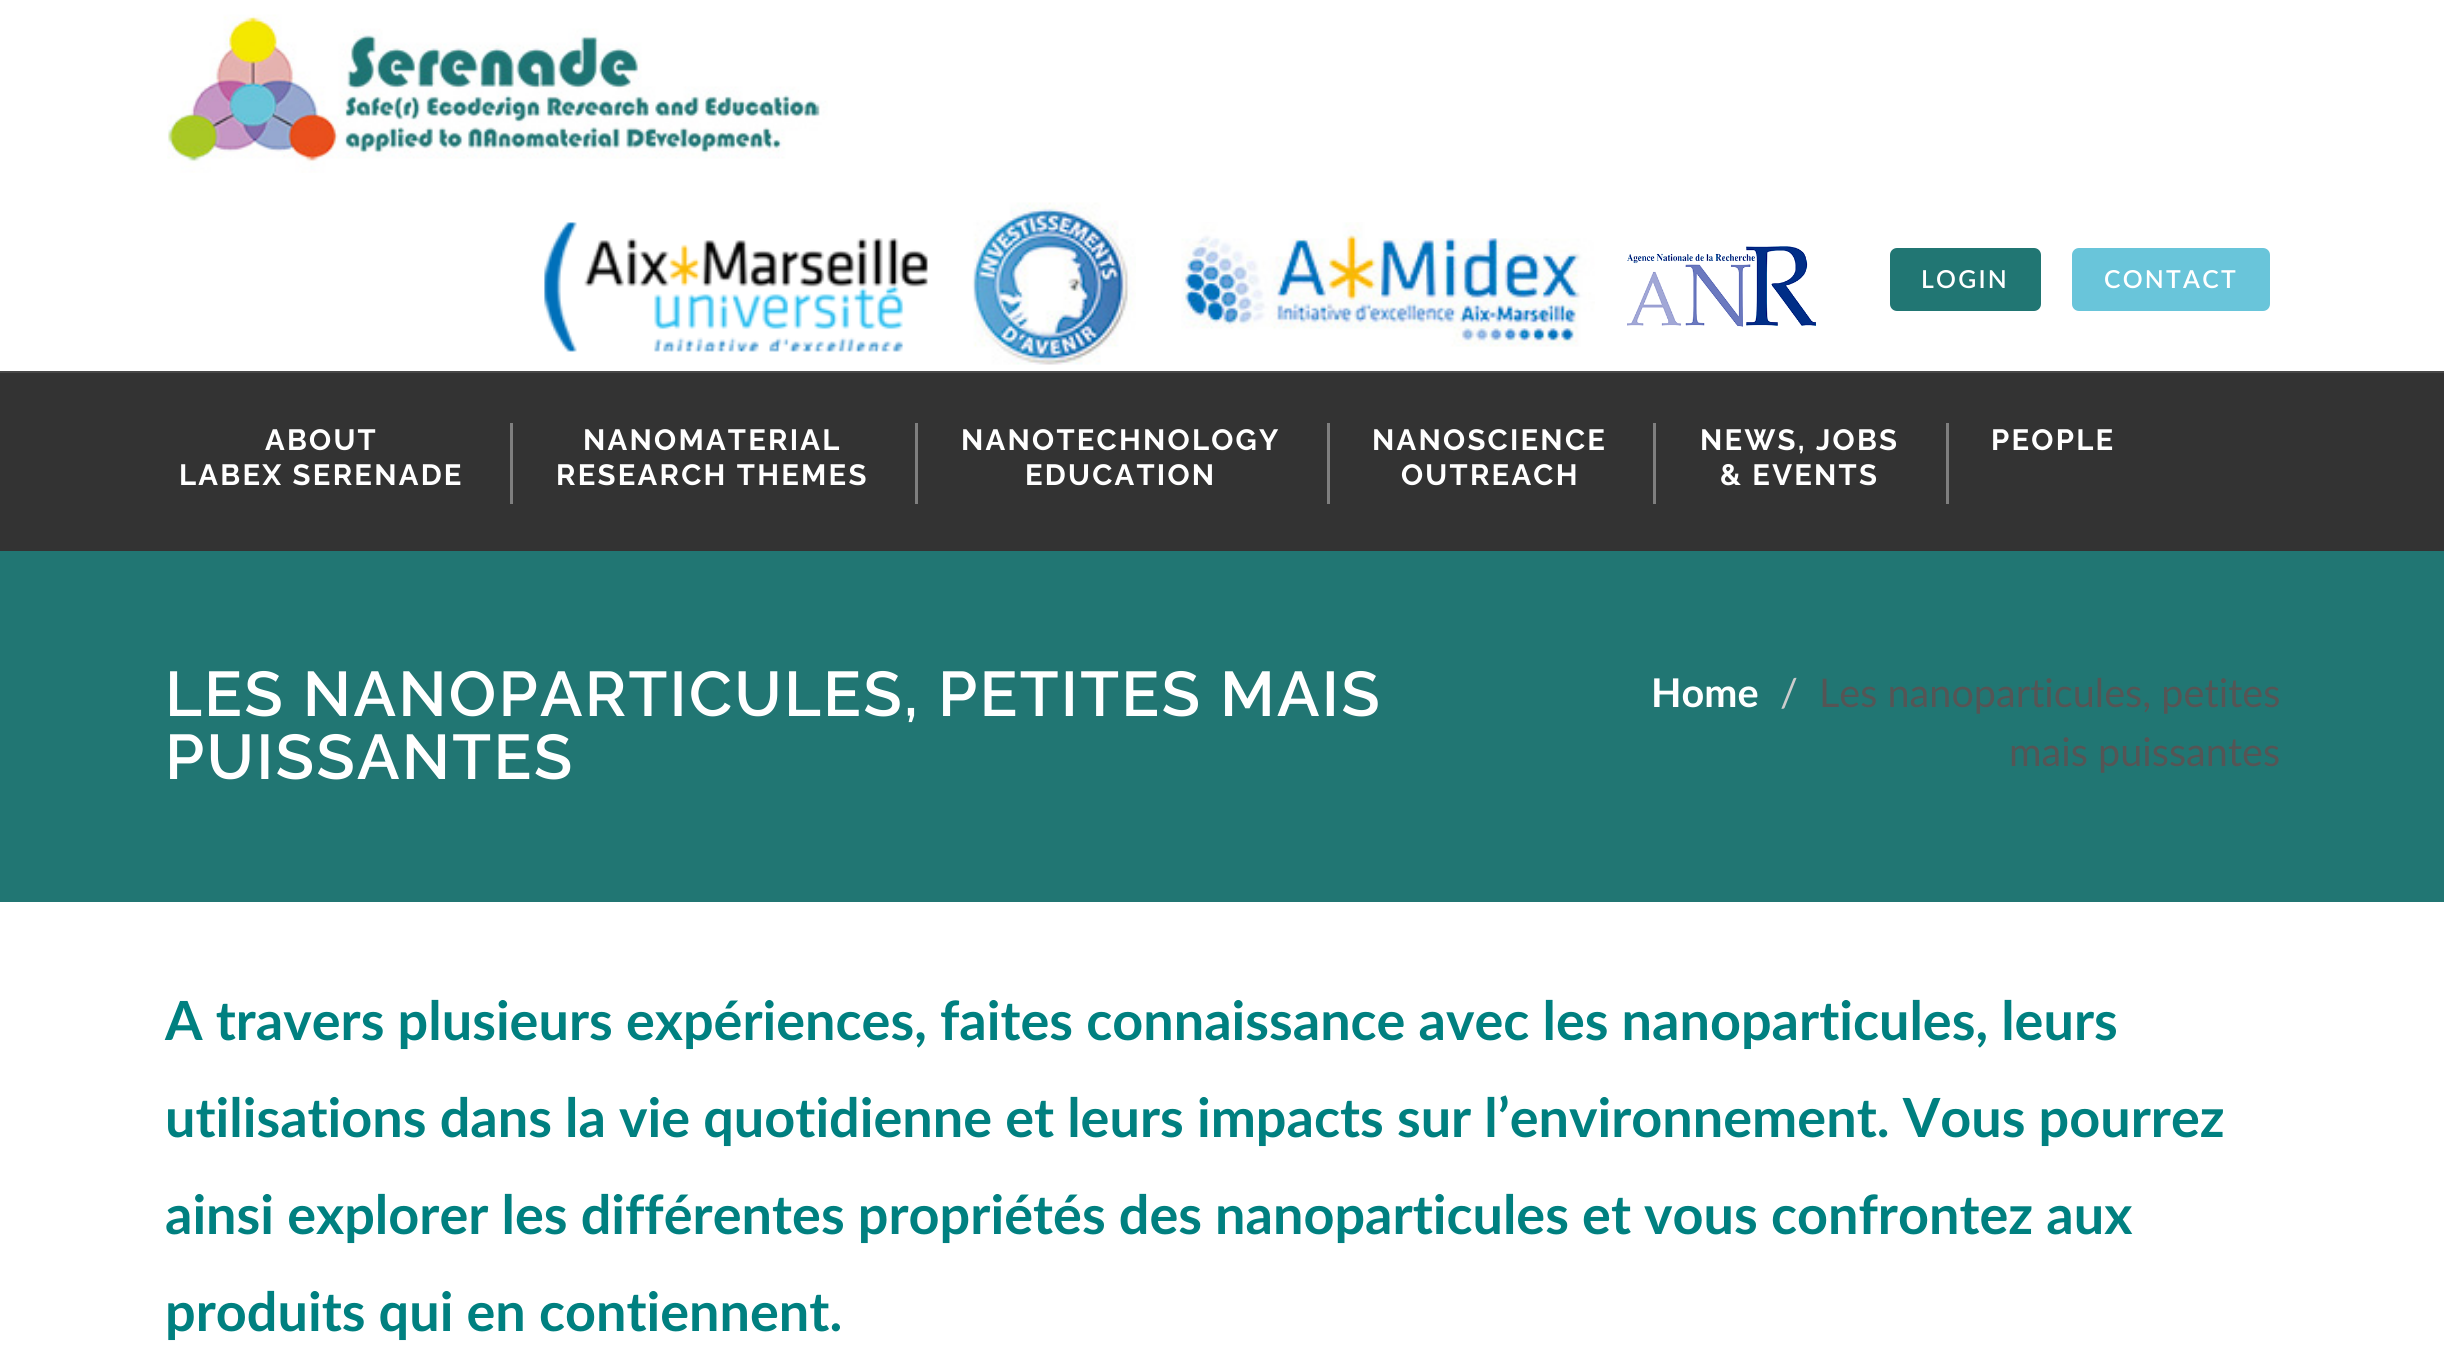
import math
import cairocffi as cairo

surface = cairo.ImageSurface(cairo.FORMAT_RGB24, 2444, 1349)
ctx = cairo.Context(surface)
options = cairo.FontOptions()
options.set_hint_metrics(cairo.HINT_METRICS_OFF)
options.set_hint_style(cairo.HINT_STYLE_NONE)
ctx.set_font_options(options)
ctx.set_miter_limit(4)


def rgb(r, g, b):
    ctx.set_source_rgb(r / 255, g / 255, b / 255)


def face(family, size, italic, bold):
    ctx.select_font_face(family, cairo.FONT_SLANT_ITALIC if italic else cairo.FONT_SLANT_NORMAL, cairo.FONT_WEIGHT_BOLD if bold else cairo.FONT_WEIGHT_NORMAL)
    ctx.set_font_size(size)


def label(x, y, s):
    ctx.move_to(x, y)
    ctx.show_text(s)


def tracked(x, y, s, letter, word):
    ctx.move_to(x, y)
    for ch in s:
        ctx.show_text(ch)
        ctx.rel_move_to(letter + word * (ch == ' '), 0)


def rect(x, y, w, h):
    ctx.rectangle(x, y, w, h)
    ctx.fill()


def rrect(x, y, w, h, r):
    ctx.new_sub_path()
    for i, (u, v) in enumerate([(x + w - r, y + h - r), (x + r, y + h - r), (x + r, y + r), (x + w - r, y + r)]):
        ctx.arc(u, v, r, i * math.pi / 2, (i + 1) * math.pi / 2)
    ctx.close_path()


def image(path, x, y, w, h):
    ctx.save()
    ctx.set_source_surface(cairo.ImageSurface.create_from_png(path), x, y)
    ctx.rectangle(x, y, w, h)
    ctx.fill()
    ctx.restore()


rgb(255, 255, 255)
ctx.paint()
image('image0.png', 167, 14, 661, 159)
image('image1.png', 544, 222, 384, 130)
image('image2.png', 972, 202, 164, 163)
image('image3.png', 1181, 222, 414, 125)
image('image4.png', 1627, 246, 189, 81)
rgb(33, 118, 115)
rrect(1890, 248, 151, 63, 7)
ctx.fill()
face('Lato SemiBold', 24.75, 0, 0)
rgb(255, 255, 255)
tracked(1921, 288, 'LOGIN', 2.25, 0)
rgb(105, 197, 218)
rrect(2072, 248, 198, 63, 7)
ctx.fill()
rgb(255, 255, 255)
tracked(2104, 288, 'CONTACT', 2.25, 0)
rgb(51, 51, 51)
rect(0, 373, 2444, 178)
rgb(71, 71, 71)
rect(0, 371, 2444, 2)
face('Raleway', 29.25, 0, 1)
rgb(255, 255, 255)
tracked(265, 450, 'ABOUT', 2.25, 0)
tracked(179, 485, 'LABEX SERENADE', 2.25, 0)
rgb(127, 127, 127)
rect(510, 423, 3, 81)
rgb(255, 255, 255)
tracked(583, 450, 'NANOMATERIAL', 2.25, 0)
tracked(556, 485, 'RESEARCH THEMES', 2.25, 0)
rgb(127, 127, 127)
rect(915, 423, 3, 81)
rgb(255, 255, 255)
tracked(961, 450, 'NANOTECHNOLOGY', 2.25, 0)
tracked(1025, 485, 'EDUCATION', 2.25, 0)
rgb(127, 127, 127)
rect(1327, 423, 3, 81)
rgb(255, 255, 255)
tracked(1372, 450, 'NANOSCIENCE', 2.25, 0)
tracked(1401, 485, 'OUTREACH', 2.25, 0)
rgb(127, 127, 127)
rect(1653, 423, 3, 81)
rgb(255, 255, 255)
tracked(1700, 450, 'NEWS, JOBS', 2.25, 0)
tracked(1720, 485, '& EVENTS', 2.25, 0)
rgb(127, 127, 127)
rect(1946, 423, 3, 81)
rgb(255, 255, 255)
tracked(1991, 450, 'PEOPLE', 2.25, 0)
rgb(33, 118, 115)
rect(0, 551, 2444, 351)
face('Raleway SemiBold', 63, 0, 0)
rgb(255, 255, 255)
tracked(165, 716, 'LES NANOPARTICULES, PETITES MAIS', 2.25, 0)
tracked(165, 779, 'PUISSANTES', 2.25, 0)
face('Lato', 39.6, 0, 1)
label(1651, 707, 'Home')
face('Lato', 39.6, 0, 0)
rgb(204, 204, 204)
label(1780, 707, '/')
rgb(85, 85, 85)
label(1819, 707, 'Les nanoparticules, petites')
label(2009, 766, 'mais puissantes')
face('Lato', 54, 0, 1)
rgb(0, 128, 128)
label(165, 1040, 'A travers plusieurs expériences, faites connaissance avec les nanoparticules, leurs')
label(165, 1137, 'utilisations dans la vie quotidienne et leurs impacts sur l’environnement. Vous pourrez')
label(165, 1234, 'ainsi explorer les différentes propriétés des nanoparticules et vous confrontez aux')
label(165, 1331, 'produits qui en contiennent.')
surface.write_to_png('render.png')
